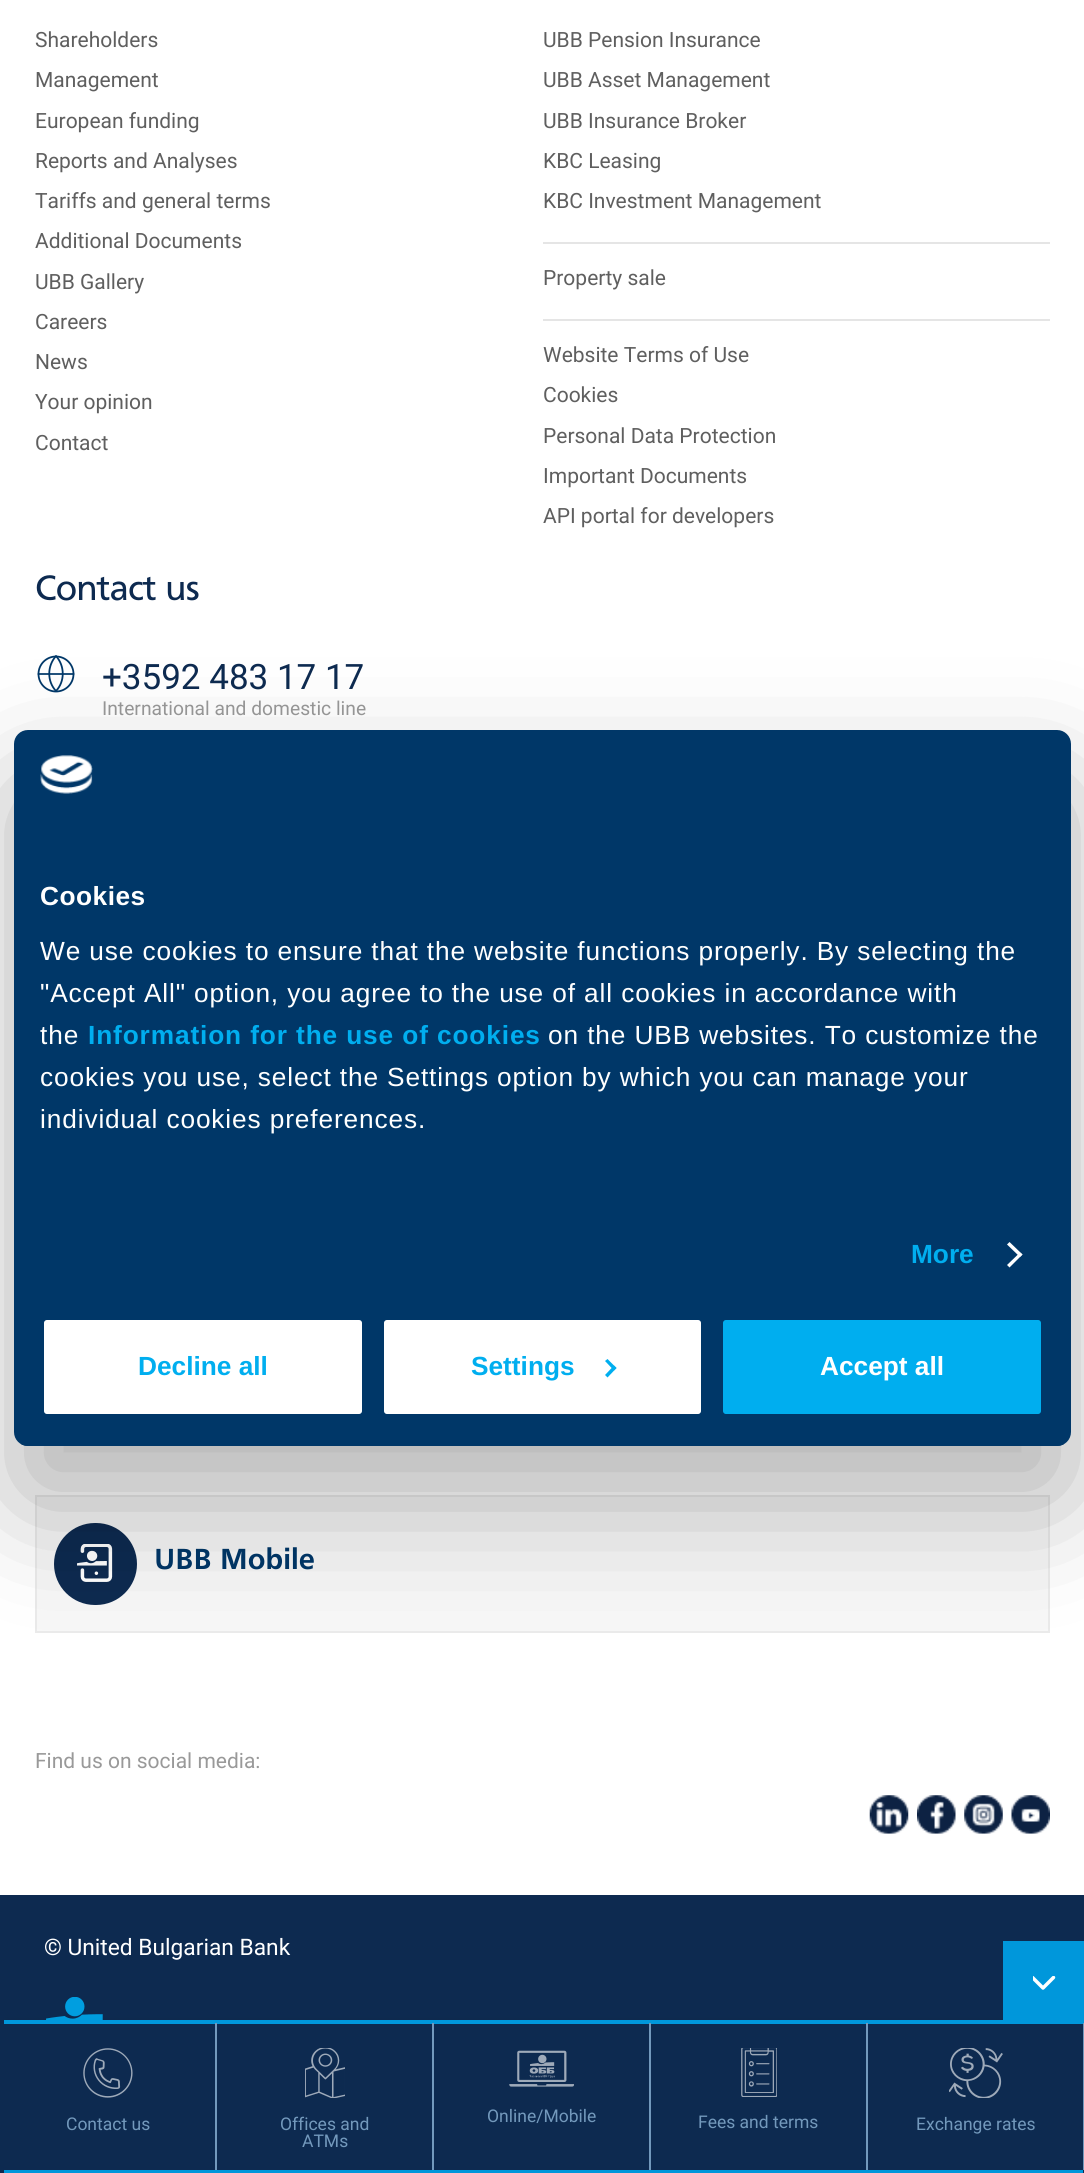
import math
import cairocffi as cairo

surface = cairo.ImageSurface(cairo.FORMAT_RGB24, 1084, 2173)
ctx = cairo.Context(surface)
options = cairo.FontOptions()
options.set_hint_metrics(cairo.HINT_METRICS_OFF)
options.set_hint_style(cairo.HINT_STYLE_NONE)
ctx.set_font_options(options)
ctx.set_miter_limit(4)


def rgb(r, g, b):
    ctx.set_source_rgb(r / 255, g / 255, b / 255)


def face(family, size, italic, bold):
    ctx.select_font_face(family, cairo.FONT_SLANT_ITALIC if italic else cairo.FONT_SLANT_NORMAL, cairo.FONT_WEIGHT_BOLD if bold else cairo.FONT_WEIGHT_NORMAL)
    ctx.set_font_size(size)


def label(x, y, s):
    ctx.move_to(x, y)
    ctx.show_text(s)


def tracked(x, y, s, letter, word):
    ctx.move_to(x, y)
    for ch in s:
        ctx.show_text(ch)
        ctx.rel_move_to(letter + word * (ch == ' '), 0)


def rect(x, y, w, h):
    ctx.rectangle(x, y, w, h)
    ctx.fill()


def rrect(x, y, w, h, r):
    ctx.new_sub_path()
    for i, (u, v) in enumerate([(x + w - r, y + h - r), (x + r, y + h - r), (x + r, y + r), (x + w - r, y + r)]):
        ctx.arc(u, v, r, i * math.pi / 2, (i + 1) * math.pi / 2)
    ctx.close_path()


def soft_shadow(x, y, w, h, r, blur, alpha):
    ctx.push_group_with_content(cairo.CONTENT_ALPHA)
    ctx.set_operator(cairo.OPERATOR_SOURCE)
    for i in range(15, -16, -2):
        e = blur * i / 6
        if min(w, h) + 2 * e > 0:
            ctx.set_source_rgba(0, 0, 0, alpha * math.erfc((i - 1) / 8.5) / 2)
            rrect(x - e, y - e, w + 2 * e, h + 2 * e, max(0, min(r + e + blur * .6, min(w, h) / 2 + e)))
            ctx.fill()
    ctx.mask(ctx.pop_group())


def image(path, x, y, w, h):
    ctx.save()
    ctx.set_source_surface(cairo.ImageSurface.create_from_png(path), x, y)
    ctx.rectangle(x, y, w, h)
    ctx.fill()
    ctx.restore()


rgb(255, 255, 255)
ctx.paint()
face('Roboto', 21, 0, 0)
rgb(95, 95, 95)
label(35, 47, 'Shareholders')
label(35, 87, 'Management')
label(35, 128, 'European funding')
label(35, 168, 'Reports and Analyses')
label(35, 208, 'Tariffs and general terms')
label(35, 248, 'Additional Documents')
label(35, 289, 'UBB Gallery')
label(35, 329, 'Careers')
label(35, 369, 'News')
label(35, 409, 'Your opinion')
label(35, 450, 'Contact')
label(543, 47, 'UBB Pension Insurance')
label(543, 87, 'UBB Asset Management')
label(543, 128, 'UBB Insurance Broker')
label(543, 168, 'KBC Leasing')
label(543, 208, 'KBC Investment Management')
rgb(229, 229, 229)
rect(543, 242, 507, 2)
rgb(95, 95, 95)
label(543, 285, 'Property sale')
rgb(229, 229, 229)
rect(543, 319, 507, 2)
rgb(95, 95, 95)
label(543, 362, 'Website Terms of Use')
label(543, 402, 'Cookies')
label(543, 443, 'Personal Data Protection')
label(543, 483, 'Important Documents')
label(543, 523, 'API portal for developers')
face('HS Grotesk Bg', 38.5, 0, 0)
rgb(13, 42, 80)
tracked(35, 600, 'Contact us', -0.75, 0)
ctx.new_path()
ctx.arc(56, 674, 17.5, 0, 2 * math.pi)
rgb(0, 55, 104)
ctx.set_line_width(1.8)
ctx.stroke()
ctx.new_path()
ctx.move_to(38.5, 674)
ctx.line_to(73.5, 674)
ctx.move_to(56, 656)
ctx.curve_to(65, 666, 65, 681.5, 56, 691)
ctx.curve_to(47, 681.5, 47, 666, 56, 656)
ctx.close_path()
ctx.set_line_cap(cairo.LINE_CAP_ROUND)
ctx.set_line_join(cairo.LINE_JOIN_ROUND)
ctx.stroke()
face('Roboto', 35, 0, 0)
rgb(13, 42, 80)
label(102, 689, '+3592 483 17 17')
face('Roboto', 19.25, 0, 0)
rgb(153, 153, 153)
label(102, 715, 'International and domestic line')
rgb(247, 247, 247)
ctx.rectangle(36, 1496, 1013, 136)
ctx.fill_preserve()
rgb(234, 234, 234)
ctx.set_line_width(2)
ctx.set_line_cap(cairo.LINE_CAP_BUTT)
ctx.set_line_join(cairo.LINE_JOIN_MITER)
ctx.stroke()
rgb(13, 42, 80)
rrect(54, 1523, 83, 82, 41)
ctx.fill()
image('image0.png', 77, 1544, 36, 38)
face('HS Grotesk Bg', 31.5, 0, 1)
rgb(0, 55, 104)
label(154, 1569, 'UBB Mobile')
face('Roboto', 21, 0, 0)
rgb(153, 153, 153)
label(35, 1768, 'Find us on social media:')
image('image1.png', 869, 1795, 40, 39)
image('image2.png', 917, 1795, 39, 39)
image('image3.png', 964, 1795, 39, 39)
image('image4.png', 1011, 1795, 39, 39)
rgb(0, 0, 0)
soft_shadow(14, 786, 1057, 716, 14, 59.5, 0.3)
rgb(0, 55, 104)
rrect(14, 730, 1057, 716, 14)
ctx.fill()
image('image5.png', 40, 755, 53, 39)
face('Liberation Sans', 26.25, 0, 1)
rgb(255, 255, 255)
tracked(40, 905, 'Cookies', 0.5, 0)
face('Liberation Sans', 26.25, 0, 0)
tracked(40, 960, 'We use cookies to ensure that the website functions properly. By selecting the', 0.88, 0)
tracked(40, 1002, '"Accept All" option, you agree to the use of all cookies in accordance with', 0.88, 0)
tracked(40, 1044, 'the', 0.88, 0)
face('Liberation Sans', 26.25, 0, 1)
rgb(0, 174, 239)
tracked(88, 1044, 'Information for the use of cookies', 0.88, 0)
face('Liberation Sans', 26.25, 0, 0)
rgb(255, 255, 255)
tracked(548, 1044, 'on the UBB websites. To customize the', 0.88, 0)
tracked(40, 1086, 'cookies you use, select the Settings option by which you can manage your', 0.88, 0)
tracked(40, 1128, 'individual cookies preferences.', 0.88, 0)
face('Liberation Sans', 26.25, 0, 1)
rgb(0, 174, 239)
label(911, 1263, 'More')
rgb(255, 255, 255)
ctx.new_path()
ctx.move_to(1009.5, 1242)
ctx.line_to(1022.5, 1254.5)
ctx.line_to(1020, 1257)
ctx.line_to(1007, 1244.5)
ctx.close_path()
ctx.fill()
ctx.new_path()
ctx.move_to(1020, 1252.5)
ctx.line_to(1022.5, 1254.5)
ctx.line_to(1009.5, 1267.5)
ctx.line_to(1007, 1265)
ctx.close_path()
ctx.fill()
ctx.save()
rrect(14, 730, 1057, 716, 14)
ctx.clip()
rgb(0, 55, 104)
rect(14, 1444, 1057, 2)
ctx.restore()
rrect(42, 1318, 322, 98, 5)
ctx.fill_preserve()
rgb(0, 55, 104)
ctx.set_line_width(4)
ctx.stroke()
rgb(0, 174, 239)
label(138, 1375, 'Decline all')
rgb(255, 255, 255)
rrect(382, 1318, 321, 98, 5)
ctx.fill_preserve()
rgb(0, 55, 104)
ctx.stroke()
rgb(0, 174, 239)
label(471, 1375, 'Settings')
ctx.new_path()
ctx.move_to(607.5, 1359)
ctx.line_to(616.5, 1368)
ctx.line_to(614, 1370.5)
ctx.line_to(605, 1361)
ctx.close_path()
ctx.fill()
ctx.new_path()
ctx.move_to(614, 1365.5)
ctx.line_to(616.5, 1368)
ctx.line_to(607.5, 1377.5)
ctx.line_to(605, 1375)
ctx.close_path()
ctx.fill()
rrect(721, 1318, 322, 98, 5)
ctx.fill_preserve()
rgb(0, 55, 104)
ctx.stroke()
rgb(255, 255, 255)
label(820, 1375, 'Accept all')
rgb(13, 42, 80)
rect(0, 1895, 1084, 278)
face('Roboto', 22.75, 0, 0)
rgb(255, 255, 255)
label(44, 1955, '© United Bulgarian Bank')
image('image6.png', 46, 1997, 57, 23)
rgb(0, 0, 0)
soft_shadow(4, 2025, 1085, 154, 5, 6, 0.13)
rgb(13, 42, 80)
rrect(0, 2020, 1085, 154, 5)
ctx.fill()
rgb(0, 151, 219)
rect(4, 2020, 1079, 4)
rect(4, 2170, 1079, 3)
rect(1003, 1941, 81, 82)
ctx.save()
ctx.rectangle(1033, 1976, 24, 14)
ctx.clip()
ctx.new_path()
ctx.move_to(1032.5, 1977.5)
ctx.line_to(1043, 1988)
ctx.line_to(1053.5, 1977.5)
rgb(255, 255, 255)
ctx.set_line_width(3.5)
ctx.set_line_cap(cairo.LINE_CAP_ROUND)
ctx.set_line_join(cairo.LINE_JOIN_ROUND)
ctx.stroke()
ctx.restore()
rgb(115, 153, 188)
rect(215, 2023, 2, 147)
image('image7.png', 83, 2048, 50, 50)
face('Roboto', 17.5, 0, 0)
label(66, 2130, 'Contact us')
rect(432, 2023, 2, 147)
image('image8.png', 305, 2048, 40, 50)
label(280, 2130, 'Offices and')
label(302, 2147, 'ATMs')
rect(649, 2023, 2, 147)
image('image9.png', 509, 2050, 65, 37)
label(487, 2122, 'Online/Mobile')
rect(866, 2023, 2, 147)
image('image10.png', 741, 2048, 36, 49)
label(698, 2128, 'Fees and terms')
rect(1083, 2023, 1, 147)
image('image11.png', 949, 2048, 54, 50)
label(916, 2130, 'Exchange rates')
surface.write_to_png('render.png')
